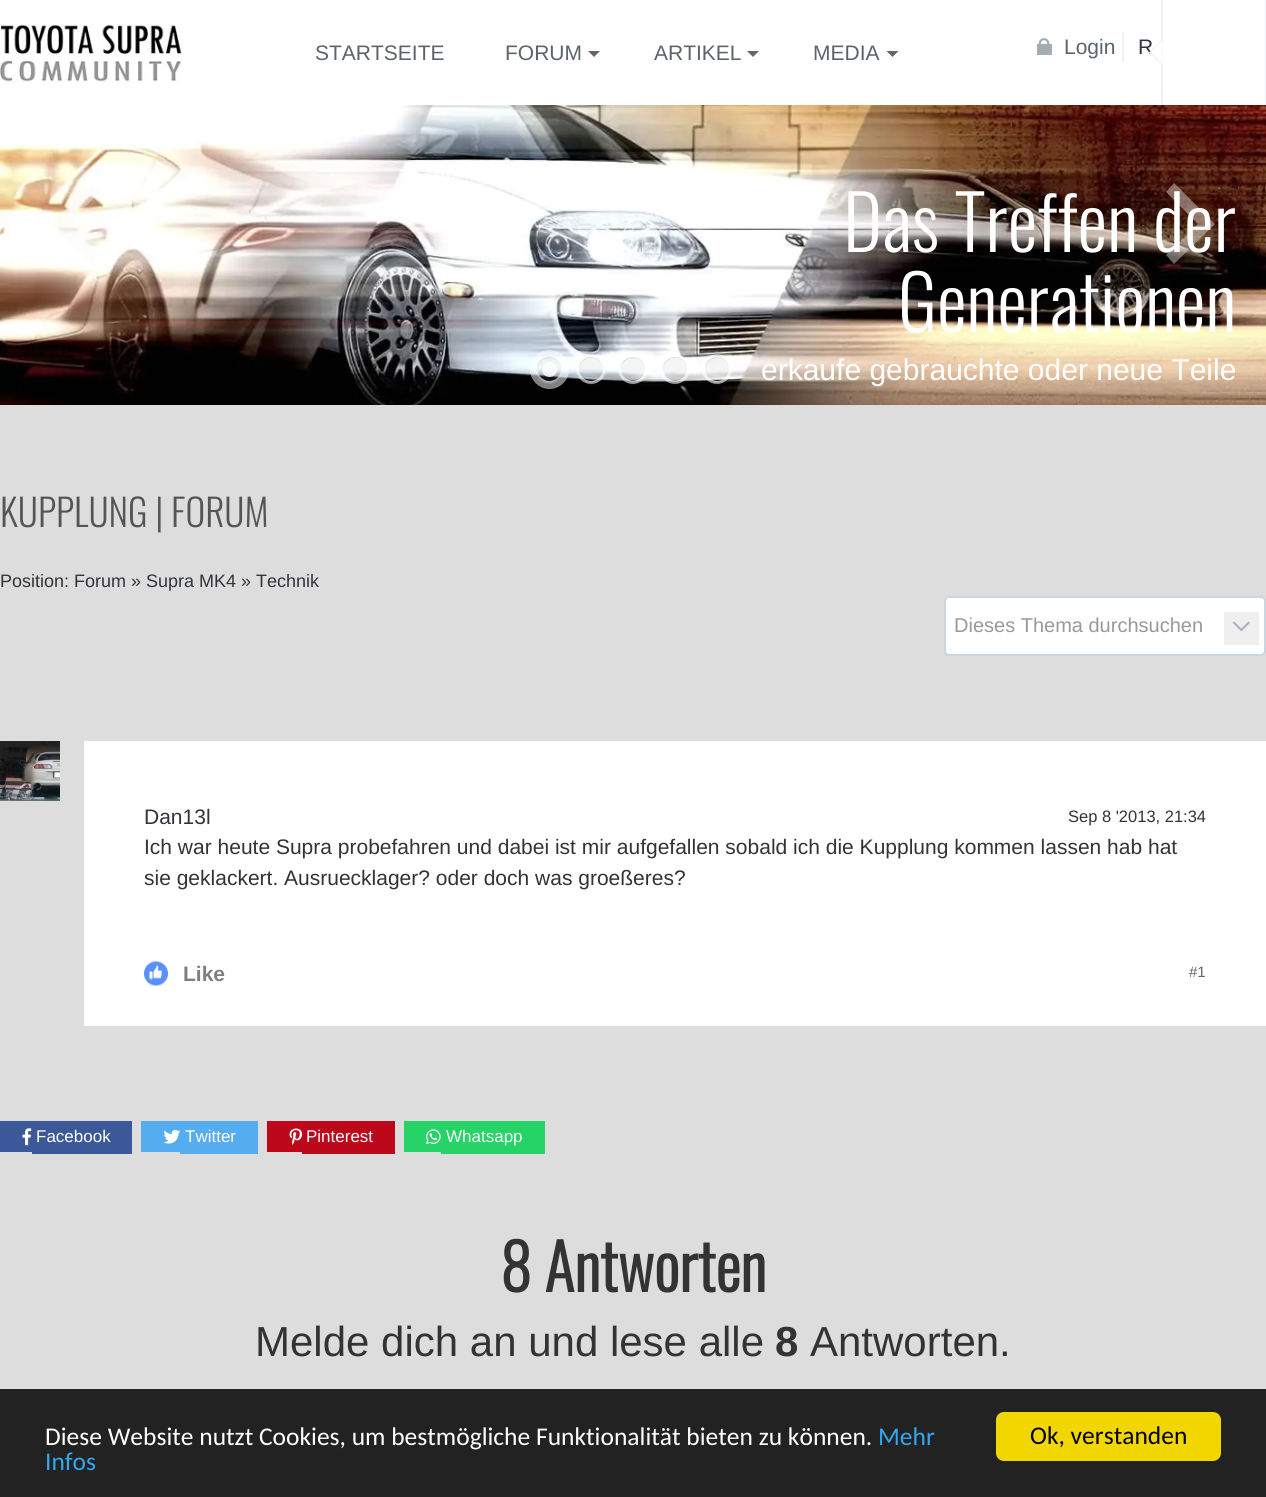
import math
import cairocffi as cairo

surface = cairo.ImageSurface(cairo.FORMAT_RGB24, 1266, 1497)
ctx = cairo.Context(surface)
options = cairo.FontOptions()
options.set_hint_metrics(cairo.HINT_METRICS_OFF)
options.set_hint_style(cairo.HINT_STYLE_NONE)
ctx.set_font_options(options)
ctx.set_miter_limit(4)


def rgb(r, g, b):
    ctx.set_source_rgb(r / 255, g / 255, b / 255)


def face(family, size, italic, bold):
    ctx.select_font_face(family, cairo.FONT_SLANT_ITALIC if italic else cairo.FONT_SLANT_NORMAL, cairo.FONT_WEIGHT_BOLD if bold else cairo.FONT_WEIGHT_NORMAL)
    ctx.set_font_size(size)


def label(x, y, s):
    ctx.move_to(x, y)
    ctx.show_text(s)


def rect(x, y, w, h):
    ctx.rectangle(x, y, w, h)
    ctx.fill()


def rrect(x, y, w, h, r):
    ctx.new_sub_path()
    for i, (u, v) in enumerate([(x + w - r, y + h - r), (x + r, y + h - r), (x + r, y + r), (x + w - r, y + r)]):
        ctx.arc(u, v, r, i * math.pi / 2, (i + 1) * math.pi / 2)
    ctx.close_path()


def soft_shadow(x, y, w, h, r, blur, alpha):
    ctx.push_group_with_content(cairo.CONTENT_ALPHA)
    ctx.set_operator(cairo.OPERATOR_SOURCE)
    for i in range(15, -16, -2):
        e = blur * i / 6
        if min(w, h) + 2 * e > 0:
            ctx.set_source_rgba(0, 0, 0, alpha * math.erfc((i - 1) / 8.5) / 2)
            rrect(x - e, y - e, w + 2 * e, h + 2 * e, max(0, min(r + e + blur * .6, min(w, h) / 2 + e)))
            ctx.fill()
    ctx.mask(ctx.pop_group())


def image(path, x, y, w, h):
    ctx.save()
    ctx.set_source_surface(cairo.ImageSurface.create_from_png(path), x, y)
    ctx.rectangle(x, y, w, h)
    ctx.fill()
    ctx.restore()


rgb(221, 221, 221)
ctx.paint()
rgb(255, 255, 255)
rect(0, 0, 1161, 105)
image('image0.png', 0, 24, 182, 59)
face('Liberation Sans', 21, 0, 0)
rgb(91, 100, 106)
label(315, 60, 'STARTSEITE')
label(505, 60, 'FORUM')
rgb(102, 102, 102)
ctx.new_path()
ctx.move_to(588, 51)
ctx.line_to(600, 51)
ctx.line_to(594, 57)
ctx.close_path()
ctx.fill()
rgb(91, 100, 106)
label(654, 60, 'ARTIKEL')
rgb(102, 102, 102)
ctx.new_path()
ctx.move_to(747, 51)
ctx.line_to(759, 51)
ctx.line_to(753, 57)
ctx.close_path()
ctx.fill()
rgb(91, 100, 106)
label(813, 60, 'MEDIA')
rgb(102, 102, 102)
ctx.new_path()
ctx.move_to(886.5, 51)
ctx.line_to(898.5, 51)
ctx.line_to(892.5, 57)
ctx.close_path()
ctx.fill()
rgb(255, 255, 255)
rect(1163, 0, 102, 105)
rgb(239, 242, 245)
rect(1265, 0, 1, 105)
rect(1161, 0, 2, 105)
rgb(49, 52, 59)
label(1138, 54, 'R')
rgb(239, 242, 245)
ctx.new_path()
ctx.move_to(1162.5, 39)
ctx.line_to(1162.5, 66)
ctx.line_to(1149, 52.5)
ctx.close_path()
ctx.fill()
rgb(255, 255, 255)
ctx.new_path()
ctx.move_to(1162.5, 40.5)
ctx.line_to(1162.5, 64.5)
ctx.line_to(1150.5, 52.5)
ctx.close_path()
ctx.fill()
image('image1.png', 1037, 38, 15, 17)
rgb(239, 242, 245)
rect(1122, 32, 2, 30)
rgb(91, 100, 106)
label(1064, 54, 'Login')
image('image2.png', 0, 105, 1266, 300)
ctx.set_source_rgba(0.98, 0.98, 0.98, 0.4)
ctx.new_path()
ctx.move_to(92, 264)
ctx.line_to(51, 224)
ctx.line_to(68, 224)
ctx.line_to(100, 255)
ctx.close_path()
ctx.fill()
ctx.new_path()
ctx.move_to(51, 224)
ctx.line_to(92, 183)
ctx.line_to(100, 192)
ctx.line_to(68, 224)
ctx.close_path()
ctx.fill()
face('Oswald Light', 75, 0, 0)
rgb(255, 255, 255)
label(843, 252, 'Das Treffen der')
ctx.set_source_rgba(0.98, 0.98, 0.98, 0.4)
ctx.new_path()
ctx.move_to(1174, 183)
ctx.line_to(1215, 224)
ctx.line_to(1198, 224)
ctx.line_to(1166, 192)
ctx.close_path()
ctx.fill()
ctx.new_path()
ctx.move_to(1215, 224)
ctx.line_to(1174, 264)
ctx.line_to(1166, 255)
ctx.line_to(1198, 224)
ctx.close_path()
ctx.fill()
ctx.arc(549.5, 369.5, 15.5, 0, 2 * math.pi)
ctx.set_source_rgba(1, 1, 1, 0.5)
ctx.set_line_width(8)
ctx.stroke()
ctx.save()
ctx.set_fill_rule(cairo.FILL_RULE_EVEN_ODD)
ctx.new_path()
ctx.move_to(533, 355)
ctx.line_to(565, 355)
ctx.line_to(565, 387)
ctx.line_to(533, 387)
ctx.close_path()
ctx.move_to(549, 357)
ctx.curve_to(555.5, 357, 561, 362.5, 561, 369)
ctx.curve_to(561, 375.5, 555.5, 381, 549, 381)
ctx.curve_to(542.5, 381, 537, 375.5, 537, 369)
ctx.curve_to(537, 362.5, 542.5, 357, 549, 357)
ctx.close_path()
ctx.clip()
rgb(255, 255, 255)
soft_shadow(537, 359, 24, 24, 12, 1, 0.4)
ctx.restore()
ctx.set_source_rgba(0.588, 0.588, 0.588, 0.1)
ctx.arc(549, 369, 12, 0, 2 * math.pi)
ctx.fill()
ctx.set_source_rgba(0, 0, 0, 0.1)
ctx.new_path()
ctx.move_to(549, 358)
ctx.curve_to(557, 358, 561, 363.5, 561, 369.5)
ctx.curve_to(561.5, 353, 536, 353, 537, 369.5)
ctx.curve_to(537.5, 364, 541.5, 358, 549, 358)
ctx.close_path()
ctx.fill()
ctx.set_source_rgba(1, 1, 1, 0.8)
ctx.arc(549.5, 369.5, 7.5, 0, 2 * math.pi)
ctx.fill()
ctx.arc(591, 369, 13.5, 0, 2 * math.pi)
ctx.set_source_rgba(1, 1, 1, 0.5)
ctx.set_line_width(3)
ctx.stroke()
ctx.save()
ctx.set_fill_rule(cairo.FILL_RULE_EVEN_ODD)
ctx.new_path()
ctx.move_to(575, 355)
ctx.line_to(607, 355)
ctx.line_to(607, 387)
ctx.line_to(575, 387)
ctx.close_path()
ctx.move_to(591, 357)
ctx.curve_to(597.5, 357, 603, 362.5, 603, 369)
ctx.curve_to(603, 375.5, 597.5, 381, 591, 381)
ctx.curve_to(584.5, 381, 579, 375.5, 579, 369)
ctx.curve_to(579, 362.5, 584.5, 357, 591, 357)
ctx.close_path()
ctx.clip()
rgb(255, 255, 255)
soft_shadow(579, 359, 24, 24, 12, 1, 0.4)
ctx.restore()
ctx.set_source_rgba(0.588, 0.588, 0.588, 0.1)
ctx.arc(591, 369, 12, 0, 2 * math.pi)
ctx.fill()
ctx.set_source_rgba(0, 0, 0, 0.1)
ctx.new_path()
ctx.move_to(591, 358)
ctx.curve_to(599, 358, 603, 363.5, 603, 369.5)
ctx.curve_to(603.5, 353, 578, 353, 579, 369.5)
ctx.curve_to(579.5, 364, 583.5, 358, 591, 358)
ctx.close_path()
ctx.fill()
ctx.arc(633, 369, 13.5, 0, 2 * math.pi)
ctx.set_source_rgba(1, 1, 1, 0.5)
ctx.stroke()
ctx.save()
ctx.set_fill_rule(cairo.FILL_RULE_EVEN_ODD)
ctx.new_path()
ctx.move_to(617, 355)
ctx.line_to(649, 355)
ctx.line_to(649, 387)
ctx.line_to(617, 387)
ctx.close_path()
ctx.move_to(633, 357)
ctx.curve_to(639.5, 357, 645, 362.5, 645, 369)
ctx.curve_to(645, 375.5, 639.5, 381, 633, 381)
ctx.curve_to(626.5, 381, 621, 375.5, 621, 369)
ctx.curve_to(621, 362.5, 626.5, 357, 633, 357)
ctx.close_path()
ctx.clip()
rgb(255, 255, 255)
soft_shadow(621, 359, 24, 24, 12, 1, 0.4)
ctx.restore()
ctx.set_source_rgba(0.588, 0.588, 0.588, 0.1)
ctx.arc(633, 369, 12, 0, 2 * math.pi)
ctx.fill()
ctx.set_source_rgba(0, 0, 0, 0.1)
ctx.new_path()
ctx.move_to(633, 358)
ctx.curve_to(641, 358, 645, 363.5, 645, 369.5)
ctx.curve_to(645.5, 353, 620, 353, 621, 369.5)
ctx.curve_to(621.5, 364, 625.5, 358, 633, 358)
ctx.close_path()
ctx.fill()
ctx.arc(675, 369, 13.5, 0, 2 * math.pi)
ctx.set_source_rgba(1, 1, 1, 0.5)
ctx.stroke()
ctx.save()
ctx.set_fill_rule(cairo.FILL_RULE_EVEN_ODD)
ctx.new_path()
ctx.move_to(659, 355)
ctx.line_to(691, 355)
ctx.line_to(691, 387)
ctx.line_to(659, 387)
ctx.close_path()
ctx.move_to(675, 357)
ctx.curve_to(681.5, 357, 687, 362.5, 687, 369)
ctx.curve_to(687, 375.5, 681.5, 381, 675, 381)
ctx.curve_to(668.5, 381, 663, 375.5, 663, 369)
ctx.curve_to(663, 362.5, 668.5, 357, 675, 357)
ctx.close_path()
ctx.clip()
rgb(255, 255, 255)
soft_shadow(663, 359, 24, 24, 12, 1, 0.4)
ctx.restore()
ctx.set_source_rgba(0.588, 0.588, 0.588, 0.1)
ctx.arc(675, 369, 12, 0, 2 * math.pi)
ctx.fill()
ctx.set_source_rgba(0, 0, 0, 0.1)
ctx.new_path()
ctx.move_to(675, 358)
ctx.curve_to(683, 358, 687, 363.5, 687, 369.5)
ctx.curve_to(687.5, 353, 662, 353, 663, 369.5)
ctx.curve_to(663.5, 364, 667.5, 358, 675, 358)
ctx.close_path()
ctx.fill()
ctx.arc(717, 369, 13.5, 0, 2 * math.pi)
ctx.set_source_rgba(1, 1, 1, 0.5)
ctx.stroke()
ctx.save()
ctx.set_fill_rule(cairo.FILL_RULE_EVEN_ODD)
ctx.new_path()
ctx.move_to(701, 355)
ctx.line_to(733, 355)
ctx.line_to(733, 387)
ctx.line_to(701, 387)
ctx.close_path()
ctx.move_to(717, 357)
ctx.curve_to(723.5, 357, 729, 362.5, 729, 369)
ctx.curve_to(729, 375.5, 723.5, 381, 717, 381)
ctx.curve_to(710.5, 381, 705, 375.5, 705, 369)
ctx.curve_to(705, 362.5, 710.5, 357, 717, 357)
ctx.close_path()
ctx.clip()
rgb(255, 255, 255)
soft_shadow(705, 359, 24, 24, 12, 1, 0.4)
ctx.restore()
ctx.set_source_rgba(0.588, 0.588, 0.588, 0.1)
ctx.arc(717, 369, 12, 0, 2 * math.pi)
ctx.fill()
ctx.set_source_rgba(0, 0, 0, 0.1)
ctx.new_path()
ctx.move_to(717, 358)
ctx.curve_to(725, 358, 729, 363.5, 729, 369.5)
ctx.curve_to(729.5, 353, 704, 353, 705, 369.5)
ctx.curve_to(705.5, 364, 709.5, 358, 717, 358)
ctx.close_path()
ctx.fill()
rgb(255, 255, 255)
label(898, 332, 'Generationen')
face('Liberation Sans', 30, 0, 0)
label(761, 380, 'erkaufe gebrauchte oder neue Teile')
face('Oswald Light', 37.5, 0, 0)
rgb(85, 85, 85)
label(0, 527, 'KUPPLUNG | FORUM')
face('Liberation Sans', 18, 0, 0)
rgb(51, 51, 51)
label(0, 587, 'Position:')
rgb(49, 52, 59)
label(74, 587, 'Forum')
rgb(51, 51, 51)
label(131, 587, '»')
rgb(49, 52, 59)
label(146, 587, 'Supra MK4')
rgb(51, 51, 51)
label(241, 587, '»')
rgb(49, 52, 59)
label(256, 587, 'Technik')
rgb(255, 255, 255)
rrect(945, 597, 320, 58, 4)
ctx.fill_preserve()
rgb(204, 214, 222)
ctx.set_line_width(2)
ctx.stroke()
face('Liberation Sans', 20, 0, 0)
rgb(153, 153, 153)
label(954, 632, 'Dieses Thema durchsuchen')
rgb(239, 239, 239)
rect(1224, 612, 35, 33)
image('image3.png', 1233, 621, 17, 10)
image('image4.png', 0, 741, 60, 60)
rgb(255, 255, 255)
rect(84, 741, 1182, 285)
face('Liberation Sans', 21, 0, 0)
rgb(49, 52, 59)
label(144, 824, 'Dan13l')
face('Liberation Sans', 16.5, 0, 0)
rgb(51, 51, 51)
label(1068, 822, 'Sep 8 \'2013, 21:34')
face('Liberation Sans', 21, 0, 0)
label(144, 854, 'Ich war heute Supra probefahren und dabei ist mir aufgefallen sobald ich die Kupplung kommen lassen hab hat')
label(144, 885, 'sie geklackert. Ausruecklager? oder doch was groeßeres?')
image('image5.png', 144, 961, 24, 25)
face('Liberation Sans', 21, 0, 1)
rgb(127, 127, 127)
label(183, 981, 'Like')
face('Liberation Sans', 15, 0, 0)
rgb(102, 102, 102)
label(1189, 977, '#1')
rgb(59, 89, 153)
rect(0, 1121, 32, 31)
rect(32, 1121, 100, 33)
image('image6.png', 22, 1128, 10, 18)
face('Liberation Sans', 17, 0, 0)
rgb(255, 255, 255)
label(36, 1142, 'Facebook')
rgb(85, 172, 238)
rect(141, 1121, 39, 31)
rect(180, 1121, 78, 33)
image('image7.png', 163, 1129, 18, 15)
rgb(255, 255, 255)
label(185, 1142, 'Twitter')
rgb(189, 8, 28)
rect(267, 1121, 35, 31)
rect(302, 1121, 93, 33)
image('image8.png', 289, 1128, 14, 17)
rgb(255, 255, 255)
label(306, 1142, 'Pinterest')
rgb(37, 211, 102)
rect(404, 1121, 37, 31)
rect(441, 1121, 104, 33)
image('image9.png', 426, 1129, 15, 15)
rgb(255, 255, 255)
label(446, 1142, 'Whatsapp')
face('Oswald', 63, 0, 1)
rgb(51, 51, 51)
label(500, 1292, '8 Antworten')
face('Liberation Sans', 42, 0, 0)
label(255, 1356, 'Melde dich an und lese alle')
face('Liberation Sans', 42, 0, 1)
label(775, 1356, '8')
face('Liberation Sans', 42, 0, 0)
label(810, 1356, 'Antworten.')
rgb(34, 34, 34)
rect(0, 1389, 1266, 108)
face('Carlito', 25.5, 0, 0)
rgb(255, 255, 255)
label(45, 1445, 'Diese Website nutzt Cookies, um bestmögliche Funktionalität bieten zu können.')
rgb(49, 168, 240)
label(878, 1445, 'Mehr')
label(45, 1470, 'Infos')
rgb(241, 214, 0)
rrect(996, 1412, 225, 49, 8)
ctx.fill()
rgb(0, 0, 0)
label(1030, 1444, 'Ok, verstanden')
surface.write_to_png('render.png')
